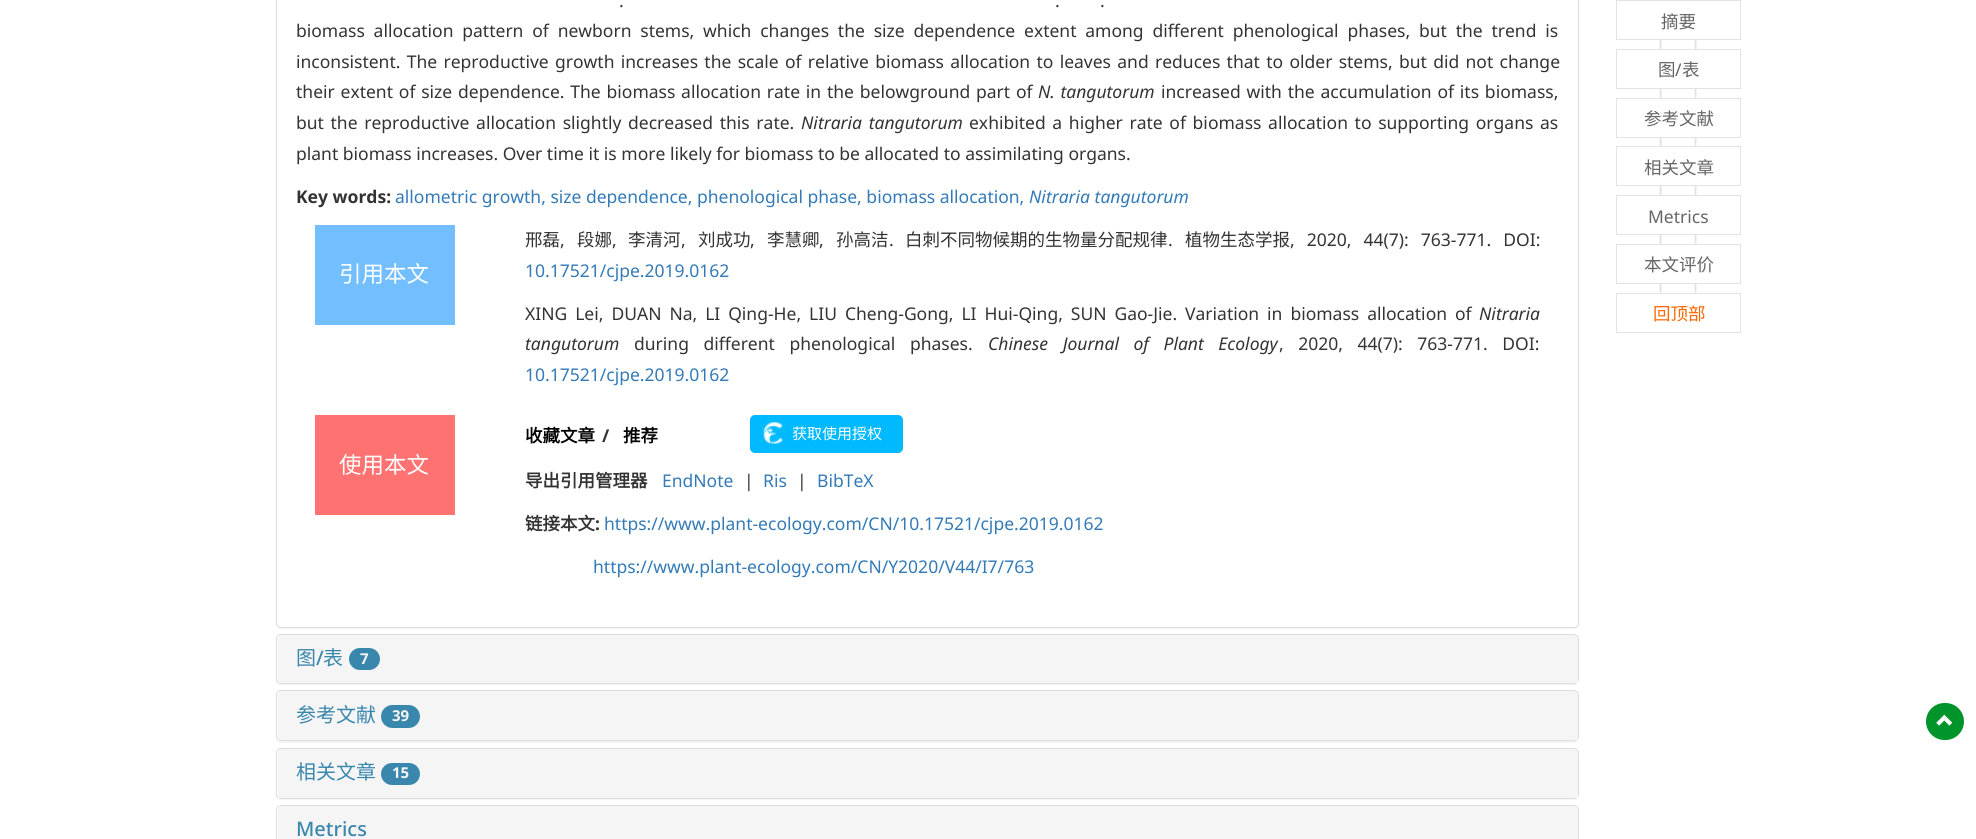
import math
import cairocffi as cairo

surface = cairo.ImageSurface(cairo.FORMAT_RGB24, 1976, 839)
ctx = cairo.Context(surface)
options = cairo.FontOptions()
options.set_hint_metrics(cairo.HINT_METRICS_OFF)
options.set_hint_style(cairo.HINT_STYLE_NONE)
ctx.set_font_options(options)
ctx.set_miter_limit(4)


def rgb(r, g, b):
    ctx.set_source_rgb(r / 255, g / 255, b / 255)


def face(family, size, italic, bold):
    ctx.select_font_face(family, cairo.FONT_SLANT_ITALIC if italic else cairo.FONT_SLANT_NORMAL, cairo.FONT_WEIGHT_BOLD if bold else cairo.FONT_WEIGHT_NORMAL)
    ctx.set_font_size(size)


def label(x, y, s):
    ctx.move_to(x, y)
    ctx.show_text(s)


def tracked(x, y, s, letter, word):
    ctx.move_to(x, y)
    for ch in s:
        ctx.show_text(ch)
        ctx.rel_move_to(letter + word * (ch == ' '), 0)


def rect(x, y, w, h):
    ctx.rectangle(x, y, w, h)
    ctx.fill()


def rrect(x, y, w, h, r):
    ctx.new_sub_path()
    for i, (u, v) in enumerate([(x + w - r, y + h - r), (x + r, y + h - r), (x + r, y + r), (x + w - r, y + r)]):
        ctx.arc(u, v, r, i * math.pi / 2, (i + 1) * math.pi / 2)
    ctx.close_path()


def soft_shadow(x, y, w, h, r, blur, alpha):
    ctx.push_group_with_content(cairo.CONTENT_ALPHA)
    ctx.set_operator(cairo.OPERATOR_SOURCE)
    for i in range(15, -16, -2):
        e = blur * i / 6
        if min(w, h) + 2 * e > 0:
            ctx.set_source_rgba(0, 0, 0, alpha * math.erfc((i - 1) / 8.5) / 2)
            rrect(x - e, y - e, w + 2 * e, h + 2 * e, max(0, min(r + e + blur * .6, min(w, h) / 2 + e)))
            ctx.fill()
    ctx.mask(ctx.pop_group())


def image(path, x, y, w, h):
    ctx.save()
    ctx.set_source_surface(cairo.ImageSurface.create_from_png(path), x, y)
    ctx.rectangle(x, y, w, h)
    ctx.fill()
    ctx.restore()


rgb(255, 255, 255)
ctx.paint()
rgb(0, 0, 0)
soft_shadow(276, -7, 1303, 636, 5, 0.5, 0.05)
rgb(255, 255, 255)
rrect(276.5, -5.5, 1302, 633, 4.5)
ctx.fill_preserve()
rgb(221, 221, 221)
ctx.set_line_width(1)
ctx.stroke()
face('Noto Sans', 17.5, 0, 0)
rgb(51, 51, 51)
tracked(619, 7, '.', 0, 2)
tracked(1055, 7, '.', 0, 2)
tracked(1100, 7, '.', 0, 2)
tracked(296, 37, 'biomass allocation pattern of newborn stems, which changes the size dependence extent among different phenological phases, but the trend is', 0, 4.25)
tracked(296, 68, 'inconsistent. The reproductive growth increases the scale of relative biomass allocation to leaves and reduces that to older stems, but did not change', 0, 1.75)
tracked(296, 98, 'their extent of size dependence. The biomass allocation rate in the belowground part of', 0, 1.25)
face('Noto Sans', 17.5, 1, 0)
tracked(1038, 98, 'N. tangutorum', 0, 1)
face('Noto Sans', 17.5, 0, 0)
tracked(1161, 98, 'increased with the accumulation of its biomass,', 0, 1.25)
tracked(296, 129, 'but the reproductive allocation slightly decreased this rate.', 0, 2.1)
face('Noto Sans', 17.5, 1, 0)
tracked(801, 129, 'Nitraria tangutorum', 0, 2.1)
face('Noto Sans', 17.5, 0, 0)
tracked(969, 129, 'exhibited a higher rate of biomass allocation to supporting organs as', 0, 2.1)
label(296, 160, 'plant biomass increases. Over time it is more likely for biomass to be allocated to assimilating organs.')
face('Noto Sans', 17.5, 0, 1)
label(296, 203, 'Key words:')
face('Noto Sans', 17.5, 0, 0)
rgb(51, 122, 183)
label(395, 203, 'allometric growth, size dependence, phenological phase, biomass allocation,')
face('Noto Sans', 17.5, 1, 0)
label(1029, 203, 'Nitraria tangutorum')
rgb(114, 190, 255)
rect(315, 225, 140, 100)
face('Noto Sans CJK SC', 22.5, 0, 0)
rgb(255, 255, 255)
label(339, 282, '引用本文')
face('Noto Sans CJK SC', 17.5, 0, 0)
rgb(51, 51, 51)
label(525, 246, '邢磊')
face('Noto Sans', 17.5, 0, 0)
label(560, 246, ',')
face('Noto Sans CJK SC', 17.5, 0, 0)
label(577, 246, '段娜')
face('Noto Sans', 17.5, 0, 0)
label(612, 246, ',')
face('Noto Sans CJK SC', 17.5, 0, 0)
label(628, 246, '李清河')
face('Noto Sans', 17.5, 0, 0)
label(681, 246, ',')
face('Noto Sans CJK SC', 17.5, 0, 0)
label(698, 246, '刘成功')
face('Noto Sans', 17.5, 0, 0)
label(750, 246, ',')
face('Noto Sans CJK SC', 17.5, 0, 0)
label(767, 246, '李慧卿')
face('Noto Sans', 17.5, 0, 0)
label(819, 246, ',')
face('Noto Sans CJK SC', 17.5, 0, 0)
label(836, 246, '孙高洁')
face('Noto Sans', 17.5, 0, 0)
label(889, 246, '.')
face('Noto Sans CJK SC', 17.5, 0, 0)
label(905, 246, '白刺不同物候期的生物量分配规律')
face('Noto Sans', 17.5, 0, 0)
label(1168, 246, '.')
face('Noto Sans CJK SC', 17.5, 0, 0)
label(1185, 246, '植物生态学报')
face('Noto Sans', 17.5, 0, 0)
tracked(1290, 246, ', 2020, 44(7): 763-771. DOI:', 0, 7.5)
rgb(51, 122, 183)
label(525, 277, '10.17521/cjpe.2019.0162')
rgb(51, 51, 51)
tracked(525, 320, 'XING Lei, DUAN Na, LI Qing-He, LIU Cheng-Gong, LI Hui-Qing, SUN Gao-Jie. Variation in biomass allocation of', 0, 3.4)
face('Noto Sans', 17.5, 1, 0)
label(1479, 320, 'Nitraria')
label(525, 350, 'tangutorum')
face('Noto Sans', 17.5, 0, 0)
tracked(634, 350, 'during different phenological phases.', 0, 10)
face('Noto Sans', 17.5, 1, 0)
tracked(988, 350, 'Chinese Journal of Plant Ecology', 0, 10)
face('Noto Sans', 17.5, 0, 0)
tracked(1279, 350, ', 2020, 44(7): 763-771. DOI:', 0, 10)
rgb(51, 122, 183)
label(525, 381, '10.17521/cjpe.2019.0162')
rgb(255, 114, 114)
rect(315, 415, 140, 100)
face('Noto Sans CJK SC', 22.5, 0, 0)
rgb(255, 255, 255)
label(339, 473, '使用本文')
face('Noto Sans CJK SC', 17.5, 0, 1)
rgb(0, 0, 0)
label(525, 442, '收藏文章')
face('Noto Sans', 17.5, 0, 1)
rgb(51, 51, 51)
label(602, 442, '/')
face('Noto Sans CJK SC', 17.5, 0, 1)
rgb(0, 0, 0)
label(623, 442, '推荐')
rgb(0, 185, 255)
rrect(750, 415, 153, 38, 5)
ctx.fill()
image('image0.png', 763, 422, 20, 22)
face('Noto Sans CJK SC', 15, 0, 0)
rgb(255, 255, 255)
label(792, 439, '获取使用授权')
face('Noto Sans CJK SC', 17.5, 0, 1)
rgb(51, 51, 51)
label(525, 487, '导出引用管理器')
face('Noto Sans', 17.5, 0, 0)
rgb(51, 122, 183)
label(662, 487, 'EndNote')
rgb(51, 51, 51)
label(744, 487, '|')
rgb(51, 122, 183)
label(763, 487, 'Ris')
rgb(51, 51, 51)
label(797, 487, '|')
rgb(51, 122, 183)
label(817, 487, 'BibTeX')
face('Noto Sans CJK SC', 17.5, 0, 1)
rgb(51, 51, 51)
label(525, 530, '链接本文')
face('Noto Sans', 17.5, 0, 1)
label(595, 530, ':')
face('Noto Sans', 17.5, 0, 0)
rgb(51, 122, 183)
label(604, 530, 'https://www.plant-ecology.com/CN/10.17521/cjpe.2019.0162')
label(593, 573, 'https://www.plant-ecology.com/CN/Y2020/V44/I7/763')
rgb(0, 0, 0)
soft_shadow(276, 635, 1303, 50, 5, 0.5, 0.05)
rgb(255, 255, 255)
rrect(276.5, 634.5, 1302, 49, 4.5)
ctx.fill_preserve()
rgb(221, 221, 221)
ctx.stroke()
rgb(245, 245, 245)
ctx.new_path()
ctx.move_to(282, 635)
ctx.line_to(1574, 635)
ctx.curve_to(1576, 635, 1578, 637, 1578, 639)
ctx.line_to(1578, 683)
ctx.line_to(278, 683)
ctx.line_to(278, 639)
ctx.curve_to(278, 637, 280, 635, 282, 635)
ctx.close_path()
ctx.fill()
face('Noto Sans CJK SC', 20, 0, 0)
rgb(58, 135, 173)
label(296, 665, '图')
face('Noto Sans Medium', 20, 0, 0)
label(316, 665, '/')
face('Noto Sans CJK SC', 20, 0, 0)
label(323, 665, '表')
rrect(349, 648, 31, 22, 11)
ctx.fill()
face('Noto Sans', 15, 0, 1)
rgb(245, 245, 245)
label(360, 664, '7')
rgb(0, 0, 0)
soft_shadow(276, 691, 1303, 52, 5, 0.5, 0.05)
rgb(255, 255, 255)
rrect(276.5, 690.5, 1302, 50, 4.5)
ctx.fill_preserve()
rgb(221, 221, 221)
ctx.stroke()
rgb(245, 245, 245)
ctx.new_path()
ctx.move_to(282, 691)
ctx.line_to(1574, 691)
ctx.curve_to(1576, 691, 1578, 693, 1578, 695)
ctx.line_to(1578, 740)
ctx.line_to(278, 740)
ctx.line_to(278, 695)
ctx.curve_to(278, 693, 280, 691, 282, 691)
ctx.close_path()
ctx.fill()
face('Noto Sans CJK SC', 20, 0, 0)
rgb(58, 135, 173)
label(296, 722, '参考文献')
rrect(381, 705, 39, 23, 11.5)
ctx.fill()
face('Noto Sans', 15, 0, 1)
rgb(245, 245, 245)
label(392, 721, '39')
rgb(0, 0, 0)
soft_shadow(276, 749, 1303, 51, 5, 0.5, 0.05)
rgb(255, 255, 255)
rrect(276.5, 748.5, 1302, 50, 4.5)
ctx.fill_preserve()
rgb(221, 221, 221)
ctx.stroke()
rgb(245, 245, 245)
ctx.new_path()
ctx.move_to(282, 749)
ctx.line_to(1574, 749)
ctx.curve_to(1576, 749, 1578, 751, 1578, 753)
ctx.line_to(1578, 798)
ctx.line_to(278, 798)
ctx.line_to(278, 753)
ctx.curve_to(278, 751, 280, 749, 282, 749)
ctx.close_path()
ctx.fill()
face('Noto Sans CJK SC', 20, 0, 0)
rgb(58, 135, 173)
label(296, 779, '相关文章')
rrect(381, 763, 39, 22, 11)
ctx.fill()
face('Noto Sans', 15, 0, 1)
rgb(245, 245, 245)
label(392, 778, '15')
rrect(276.5, 805.5, 1302, 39, 4.5)
rgb(221, 221, 221)
ctx.stroke()
rgb(245, 245, 245)
ctx.new_path()
ctx.move_to(282, 806)
ctx.line_to(1574, 806)
ctx.curve_to(1576, 806, 1578, 808, 1578, 810)
ctx.line_to(1578, 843)
ctx.line_to(278, 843)
ctx.line_to(278, 810)
ctx.curve_to(278, 808, 280, 806, 282, 806)
ctx.close_path()
ctx.fill()
face('Noto Sans Medium', 20, 0, 0)
rgb(58, 135, 173)
label(296, 836, 'Metrics')
image('image1.png', 1659, 40, 38, 9)
ctx.rectangle(1616.5, 0.5, 124, 39)
rgb(227, 227, 227)
ctx.stroke()
face('Noto Sans CJK SC', 17.5, 0, 0)
rgb(102, 102, 102)
label(1661, 28, '摘要')
image('image2.png', 1659, 89, 38, 9)
ctx.rectangle(1616.5, 49.5, 124, 39)
rgb(227, 227, 227)
ctx.stroke()
rgb(102, 102, 102)
label(1658, 76, '图')
face('Noto Sans', 17.5, 0, 0)
label(1675, 76, '/')
face('Noto Sans CJK SC', 17.5, 0, 0)
label(1682, 76, '表')
image('image3.png', 1659, 97, 38, 49)
rgb(255, 255, 255)
rect(1659, 99, 38, 38)
ctx.rectangle(1616.5, 98.5, 124, 39)
rgb(227, 227, 227)
ctx.stroke()
rgb(102, 102, 102)
label(1644, 125, '参考文献')
image('image4.png', 1659, 186, 38, 9)
ctx.rectangle(1616.5, 146.5, 124, 39)
rgb(227, 227, 227)
ctx.stroke()
rgb(102, 102, 102)
label(1644, 174, '相关文章')
image('image5.png', 1659, 235, 38, 9)
ctx.rectangle(1616.5, 195.5, 124, 39)
rgb(227, 227, 227)
ctx.stroke()
face('Noto Sans', 17.5, 0, 0)
rgb(102, 102, 102)
label(1648, 223, 'Metrics')
image('image6.png', 1659, 243, 38, 50)
rgb(255, 255, 255)
rect(1659, 245, 38, 38)
ctx.rectangle(1616.5, 244.5, 124, 39)
rgb(227, 227, 227)
ctx.stroke()
face('Noto Sans CJK SC', 17.5, 0, 0)
rgb(102, 102, 102)
label(1644, 271, '本文评价')
ctx.rectangle(1616.5, 293.5, 124, 39)
rgb(227, 227, 227)
ctx.stroke()
rgb(255, 102, 0)
label(1653, 320, '回顶部')
rgb(1, 148, 43)
rrect(1926, 703, 38, 37, 18.5)
ctx.fill()
image('image7.png', 1936, 714, 17, 12)
surface.write_to_png('render.png')
